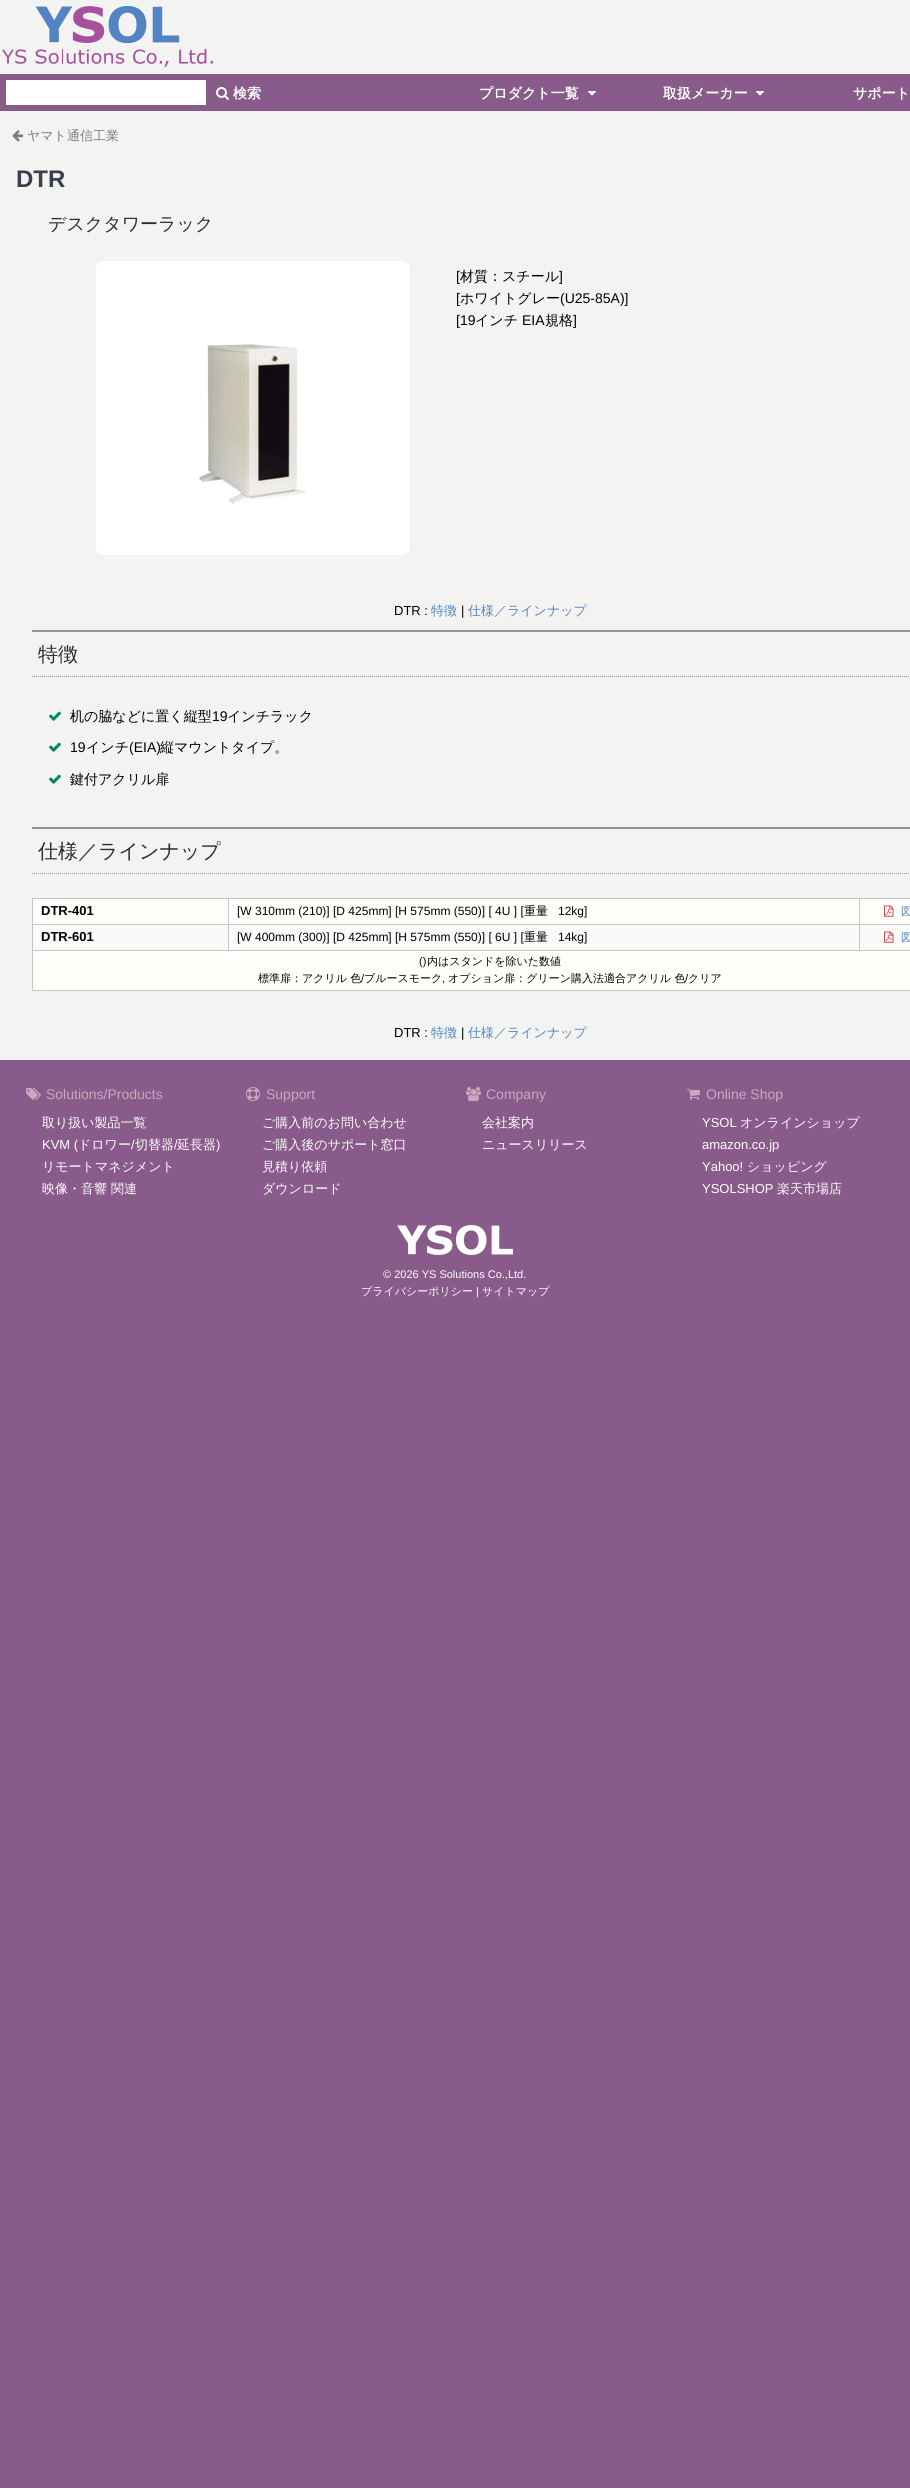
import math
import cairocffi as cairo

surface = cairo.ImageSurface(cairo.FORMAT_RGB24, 910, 2488)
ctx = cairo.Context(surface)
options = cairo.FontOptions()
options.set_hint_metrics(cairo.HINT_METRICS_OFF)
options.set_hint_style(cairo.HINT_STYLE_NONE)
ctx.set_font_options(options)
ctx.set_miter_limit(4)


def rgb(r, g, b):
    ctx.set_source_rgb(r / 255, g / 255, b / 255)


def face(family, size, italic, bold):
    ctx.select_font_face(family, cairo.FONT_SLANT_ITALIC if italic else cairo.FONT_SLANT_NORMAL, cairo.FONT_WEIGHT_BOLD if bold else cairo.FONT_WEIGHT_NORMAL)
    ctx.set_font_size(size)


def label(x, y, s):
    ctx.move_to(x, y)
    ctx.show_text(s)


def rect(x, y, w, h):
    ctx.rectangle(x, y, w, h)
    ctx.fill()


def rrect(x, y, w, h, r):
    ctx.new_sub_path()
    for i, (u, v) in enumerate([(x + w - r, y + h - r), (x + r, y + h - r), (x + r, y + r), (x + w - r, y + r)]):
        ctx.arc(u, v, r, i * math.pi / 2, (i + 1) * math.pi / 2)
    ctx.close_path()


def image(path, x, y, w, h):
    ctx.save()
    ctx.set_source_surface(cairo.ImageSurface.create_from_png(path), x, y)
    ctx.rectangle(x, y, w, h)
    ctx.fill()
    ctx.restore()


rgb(137, 91, 138)
ctx.paint()
rgb(243, 243, 242)
rect(0, 0, 910, 1060)
image('image0.png', 2, 6, 211, 61)
rgb(137, 91, 138)
rect(0, 74, 910, 37)
rgb(255, 255, 255)
rect(6, 80, 200, 25)
image('image1.png', 216, 87, 13, 13)
face('WenQuanYi Zen Hei', 14, 0, 1)
label(233, 98, '検索')
label(479, 98, 'プロダクト一覧')
image('image2.png', 588, 91, 8, 5)
label(663, 98, '取扱メーカー')
image('image2.png', 756, 91, 8, 5)
label(853, 98, 'サポート')
image('image3.png', 12, 130, 12, 12)
face('WenQuanYi Zen Hei Medium', 13, 0, 0)
rgb(125, 125, 125)
label(27, 140, 'ヤマト通信工業')
face('Liberation Sans', 24, 0, 1)
rgb(57, 63, 76)
label(16, 187, 'DTR')
face('WenQuanYi Zen Hei Medium', 18, 0, 0)
rgb(46, 41, 48)
label(48, 230, 'デスクタワーラック')
rgb(255, 255, 255)
rrect(96, 261, 314, 294, 8)
ctx.fill()
image('image4.png', 199, 344, 107, 161)
face('Liberation Sans', 14, 0, 0)
rgb(0, 0, 0)
label(456, 281, '[')
face('WenQuanYi Zen Hei Medium', 14, 0, 0)
label(460, 281, '材質：スチール')
face('Liberation Sans', 14, 0, 0)
label(559, 281, ']')
label(456, 303, '[')
face('WenQuanYi Zen Hei Medium', 14, 0, 0)
label(460, 303, 'ホワイトグレー')
face('Liberation Sans', 14, 0, 0)
label(560, 303, '(U25-85A)]')
label(456, 325, '[19')
face('WenQuanYi Zen Hei Medium', 14, 0, 0)
label(475, 325, 'インチ')
face('Liberation Sans', 14, 0, 0)
label(522, 325, 'EIA')
face('WenQuanYi Zen Hei Medium', 14, 0, 0)
label(545, 325, '規格')
face('Liberation Sans', 14, 0, 0)
label(573, 325, ']')
face('Liberation Sans', 13, 0, 0)
label(394, 615, 'DTR :')
face('WenQuanYi Zen Hei Medium', 13, 0, 0)
rgb(83, 131, 195)
label(431, 615, '特徴')
face('Liberation Sans', 13, 0, 0)
rgb(0, 0, 0)
label(461, 615, '|')
face('WenQuanYi Zen Hei Medium', 13, 0, 0)
rgb(83, 131, 195)
label(468, 615, '仕様／ラインナップ')
rgb(148, 148, 149)
rect(32, 630, 878, 2)
ctx.new_path()
ctx.move_to(32, 676.5)
ctx.line_to(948, 676.5)
ctx.set_line_width(1)
ctx.set_dash([1, 1])
ctx.stroke()
face('WenQuanYi Zen Hei Medium', 20, 0, 0)
rgb(46, 41, 48)
label(38, 661, '特徴')
image('image5.png', 49, 711, 12, 10)
face('WenQuanYi Zen Hei Medium', 14, 0, 0)
rgb(0, 0, 0)
label(70, 721, '机の脇などに置く縦型')
face('Liberation Sans', 14, 0, 0)
label(212, 721, '19')
face('WenQuanYi Zen Hei Medium', 14, 0, 0)
label(227, 721, 'インチラック')
image('image5.png', 49, 742, 12, 10)
face('Liberation Sans', 14, 0, 0)
label(70, 752, '19')
face('WenQuanYi Zen Hei Medium', 14, 0, 0)
label(86, 752, 'インチ')
face('Liberation Sans', 14, 0, 0)
label(129, 752, '(EIA)')
face('WenQuanYi Zen Hei Medium', 14, 0, 0)
label(160, 752, '縦マウントタイプ。')
image('image5.png', 49, 774, 12, 10)
label(70, 784, '鍵付アクリル扉')
rgb(148, 148, 149)
rect(32, 827, 878, 2)
ctx.new_path()
ctx.move_to(32, 873.5)
ctx.line_to(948, 873.5)
ctx.stroke()
face('WenQuanYi Zen Hei Medium', 20, 0, 0)
rgb(46, 41, 48)
label(38, 858, '仕様／ラインナップ')
rgb(255, 255, 252)
rect(33, 899, 877, 25)
rgb(192, 198, 201)
rect(859, 898, 51, 1)
rect(859, 924, 51, 1)
rgb(248, 251, 248)
rect(33, 925, 877, 25)
rgb(192, 198, 201)
rect(32, 950, 878, 1)
rect(859, 924, 1, 27)
rect(228, 924, 632, 1)
rect(859, 898, 1, 27)
rect(228, 898, 632, 1)
rect(228, 924, 1, 27)
rect(32, 924, 197, 1)
rect(228, 898, 1, 27)
rect(32, 898, 197, 1)
rect(32, 990, 878, 1)
rect(32, 950, 1, 41)
rect(32, 924, 1, 27)
rect(32, 898, 1, 27)
face('Liberation Sans', 13, 0, 1)
rgb(0, 0, 0)
label(41, 915, 'DTR-401')
face('Liberation Sans', 12, 0, 0)
label(237, 915, '[W 310mm (210)] [D 425mm] [H 575mm (550)] [ 4U ] [')
face('WenQuanYi Zen Hei Medium', 12, 0, 0)
label(524, 915, '重量')
face('Liberation Sans', 12, 0, 0)
label(558, 915, '12kg]')
image('image6.png', 884, 905, 10, 12)
face('WenQuanYi Zen Hei Medium', 11, 0, 0)
rgb(83, 131, 195)
label(901, 915, '図')
face('Liberation Sans', 13, 0, 1)
rgb(0, 0, 0)
label(41, 941, 'DTR-601')
face('Liberation Sans', 12, 0, 0)
label(237, 941, '[W 400mm (300)] [D 425mm] [H 575mm (550)] [ 6U ] [')
face('WenQuanYi Zen Hei Medium', 12, 0, 0)
label(524, 941, '重量')
face('Liberation Sans', 12, 0, 0)
label(558, 941, '14kg]')
image('image7.png', 884, 931, 10, 12)
face('WenQuanYi Zen Hei Medium', 11, 0, 0)
rgb(83, 131, 195)
label(901, 941, '図')
rgb(255, 255, 252)
rect(33, 951, 877, 39)
face('Liberation Sans', 11, 0, 0)
rgb(0, 0, 0)
label(419, 965, '()')
face('WenQuanYi Zen Hei Medium', 11, 0, 0)
label(427, 965, '内はスタンドを除いた数値')
label(258, 982, '標準扉：アクリル 色')
face('Liberation Sans', 11, 0, 0)
label(361, 982, '/')
face('WenQuanYi Zen Hei Medium', 11, 0, 0)
label(364, 982, 'ブルースモーク')
face('Liberation Sans', 11, 0, 0)
label(442, 982, ',')
face('WenQuanYi Zen Hei Medium', 11, 0, 0)
label(448, 982, 'オプション扉：グリーン購入法適合アクリル 色')
face('Liberation Sans', 11, 0, 0)
label(685, 982, '/')
face('WenQuanYi Zen Hei Medium', 11, 0, 0)
label(688, 982, 'クリア')
face('Liberation Sans', 13, 0, 0)
label(394, 1037, 'DTR :')
face('WenQuanYi Zen Hei Medium', 13, 0, 0)
rgb(83, 131, 195)
label(431, 1037, '特徴')
face('Liberation Sans', 13, 0, 0)
rgb(0, 0, 0)
label(461, 1037, '|')
face('WenQuanYi Zen Hei Medium', 13, 0, 0)
rgb(83, 131, 195)
label(468, 1037, '仕様／ラインナップ')
image('image8.png', 26, 1088, 15, 12)
face('Liberation Sans', 14, 0, 0)
rgb(204, 166, 191)
label(46, 1099, 'Solutions/Products')
face('WenQuanYi Zen Hei Medium', 13, 0, 0)
rgb(255, 255, 255)
label(42, 1127, '取り扱い製品一覧')
face('Liberation Sans', 13, 0, 0)
label(42, 1149, 'KVM (')
face('WenQuanYi Zen Hei Medium', 13, 0, 0)
label(78, 1149, 'ドロワー')
face('Liberation Sans', 13, 0, 0)
label(131, 1149, '/')
face('WenQuanYi Zen Hei Medium', 13, 0, 0)
label(135, 1149, '切替器')
face('Liberation Sans', 13, 0, 0)
label(174, 1149, '/')
face('WenQuanYi Zen Hei Medium', 13, 0, 0)
label(177, 1149, '延長器')
face('Liberation Sans', 13, 0, 0)
label(216, 1149, ')')
face('WenQuanYi Zen Hei Medium', 13, 0, 0)
label(42, 1171, 'リモートマネジメント')
label(42, 1193, '映像・音響 関連')
image('image9.png', 246, 1087, 14, 14)
face('Liberation Sans', 14, 0, 0)
rgb(204, 166, 191)
label(266, 1099, 'Support')
face('WenQuanYi Zen Hei Medium', 13, 0, 0)
rgb(255, 255, 255)
label(262, 1127, 'ご購入前のお問い合わせ')
label(262, 1149, 'ご購入後のサポート窓口')
label(262, 1171, '見積り依頼')
label(262, 1193, 'ダウンロード')
image('image10.png', 466, 1087, 15, 14)
face('Liberation Sans', 14, 0, 0)
rgb(204, 166, 191)
label(486, 1099, 'Company')
face('WenQuanYi Zen Hei Medium', 13, 0, 0)
rgb(255, 255, 255)
label(482, 1127, '会社案内')
label(482, 1149, 'ニュースリリース')
image('image11.png', 687, 1089, 13, 11)
face('Liberation Sans', 14, 0, 0)
rgb(204, 166, 191)
label(706, 1099, 'Online Shop')
face('Liberation Sans', 13, 0, 0)
rgb(255, 255, 255)
label(702, 1127, 'YSOL')
face('WenQuanYi Zen Hei Medium', 13, 0, 0)
label(740, 1127, 'オンラインショップ')
face('Liberation Sans', 13, 0, 0)
label(702, 1149, 'amazon.co.jp')
label(702, 1171, 'Yahoo!')
face('WenQuanYi Zen Hei Medium', 13, 0, 0)
label(747, 1171, 'ショッピング')
face('Liberation Sans', 13, 0, 0)
label(702, 1193, 'YSOLSHOP')
face('WenQuanYi Zen Hei Medium', 13, 0, 0)
label(777, 1193, '楽天市場店')
image('image12.png', 397, 1225, 116, 30)
face('Liberation Sans', 11, 0, 0)
label(383, 1278, '© 2026 YS Solutions Co.,Ltd.')
face('WenQuanYi Zen Hei Medium', 11, 0, 0)
label(361, 1295, 'プライバシーポリシー')
face('Liberation Sans', 11, 0, 0)
label(476, 1295, '|')
face('WenQuanYi Zen Hei Medium', 11, 0, 0)
label(482, 1295, 'サイトマップ')
surface.write_to_png('render.png')
